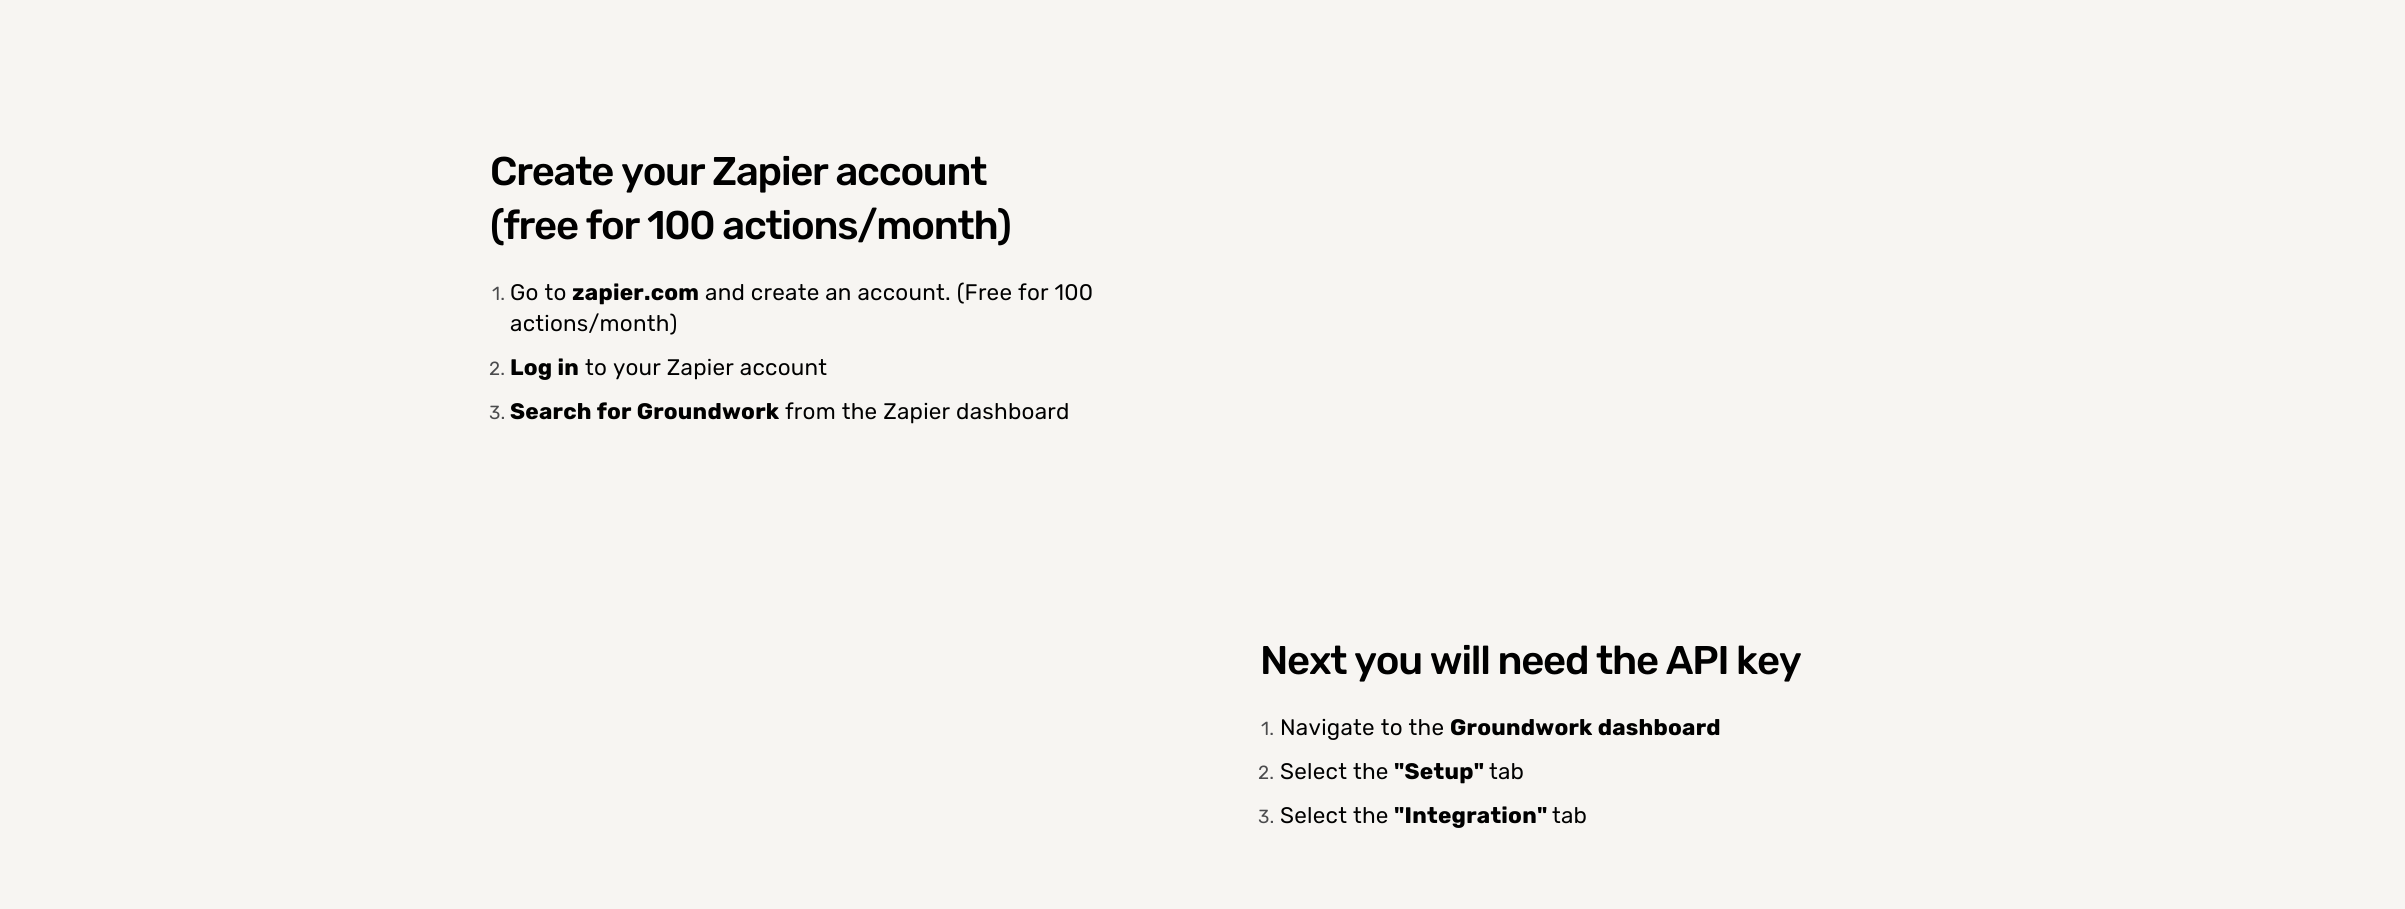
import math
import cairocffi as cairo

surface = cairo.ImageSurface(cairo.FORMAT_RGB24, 2405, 909)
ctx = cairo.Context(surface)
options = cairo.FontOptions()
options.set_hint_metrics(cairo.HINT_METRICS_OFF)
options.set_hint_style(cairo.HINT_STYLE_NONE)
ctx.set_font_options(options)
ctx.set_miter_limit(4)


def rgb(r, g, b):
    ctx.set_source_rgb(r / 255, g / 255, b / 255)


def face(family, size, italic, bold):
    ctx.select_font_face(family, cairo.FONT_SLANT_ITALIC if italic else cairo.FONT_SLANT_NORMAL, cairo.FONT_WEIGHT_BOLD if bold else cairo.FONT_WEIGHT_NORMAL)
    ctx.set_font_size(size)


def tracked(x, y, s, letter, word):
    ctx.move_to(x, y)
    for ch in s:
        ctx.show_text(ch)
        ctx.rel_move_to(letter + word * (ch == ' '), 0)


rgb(247, 245, 242)
ctx.paint()
face('Rubik Medium', 40, 0, 0)
rgb(0, 0, 0)
tracked(490, 185, 'Create your Zapier account', -1.25, 0)
tracked(490, 239, '(free for 100 actions/month)', -1.25, 0)
face('Rubik', 19, 0, 0)
rgb(75, 75, 77)
tracked(492, 300, '1.', 0.25, 0)
face('Rubik', 22.5, 0, 0)
rgb(0, 0, 0)
tracked(510, 300, 'Go to', 0.25, 0)
face('Rubik', 22.5, 0, 1)
tracked(572, 300, 'zapier.com', 0.25, 0)
face('Rubik', 22.5, 0, 0)
tracked(705, 300, 'and create an account. (Free for 100', 0.25, 0)
tracked(510, 331, 'actions/month)', 0.25, 0)
face('Rubik', 19, 0, 0)
rgb(75, 75, 77)
tracked(489, 375, '2.', 0.25, 0)
face('Rubik', 22.5, 0, 1)
rgb(0, 0, 0)
tracked(510, 375, 'Log in', 0.25, 0)
face('Rubik', 22.5, 0, 0)
tracked(585, 375, 'to your Zapier account', 0.25, 0)
face('Rubik', 19, 0, 0)
rgb(75, 75, 77)
tracked(489, 419, '3.', 0.25, 0)
face('Rubik', 22.5, 0, 1)
rgb(0, 0, 0)
tracked(510, 419, 'Search for Groundwork', 0.25, 0)
face('Rubik', 22.5, 0, 0)
tracked(785, 419, 'from the Zapier dashboard', 0.25, 0)
face('Rubik Medium', 40, 0, 0)
tracked(1260, 674, 'Next you will need the API key', -1.25, 0)
face('Rubik', 19, 0, 0)
rgb(75, 75, 77)
tracked(1261, 735, '1.', 0.25, 0)
face('Rubik', 22.5, 0, 0)
rgb(0, 0, 0)
tracked(1280, 735, 'Navigate to the', 0.25, 0)
face('Rubik', 22.5, 0, 1)
tracked(1450, 735, 'Groundwork dashboard', 0.25, 0)
face('Rubik', 19, 0, 0)
rgb(75, 75, 77)
tracked(1258, 779, '2.', 0.25, 0)
face('Rubik', 22.5, 0, 0)
rgb(0, 0, 0)
tracked(1280, 779, 'Select the', 0.25, 0)
face('Rubik', 22.5, 0, 1)
tracked(1394, 779, '"Setup"', 0.25, 0)
face('Rubik', 22.5, 0, 0)
tracked(1489, 779, 'tab', 0.25, 0)
face('Rubik', 19, 0, 0)
rgb(75, 75, 77)
tracked(1258, 823, '3.', 0.25, 0)
face('Rubik', 22.5, 0, 0)
rgb(0, 0, 0)
tracked(1280, 823, 'Select the', 0.25, 0)
face('Rubik', 22.5, 0, 1)
tracked(1394, 823, '"Integration"', 0.25, 0)
face('Rubik', 22.5, 0, 0)
tracked(1552, 823, 'tab', 0.25, 0)
surface.write_to_png('render.png')
